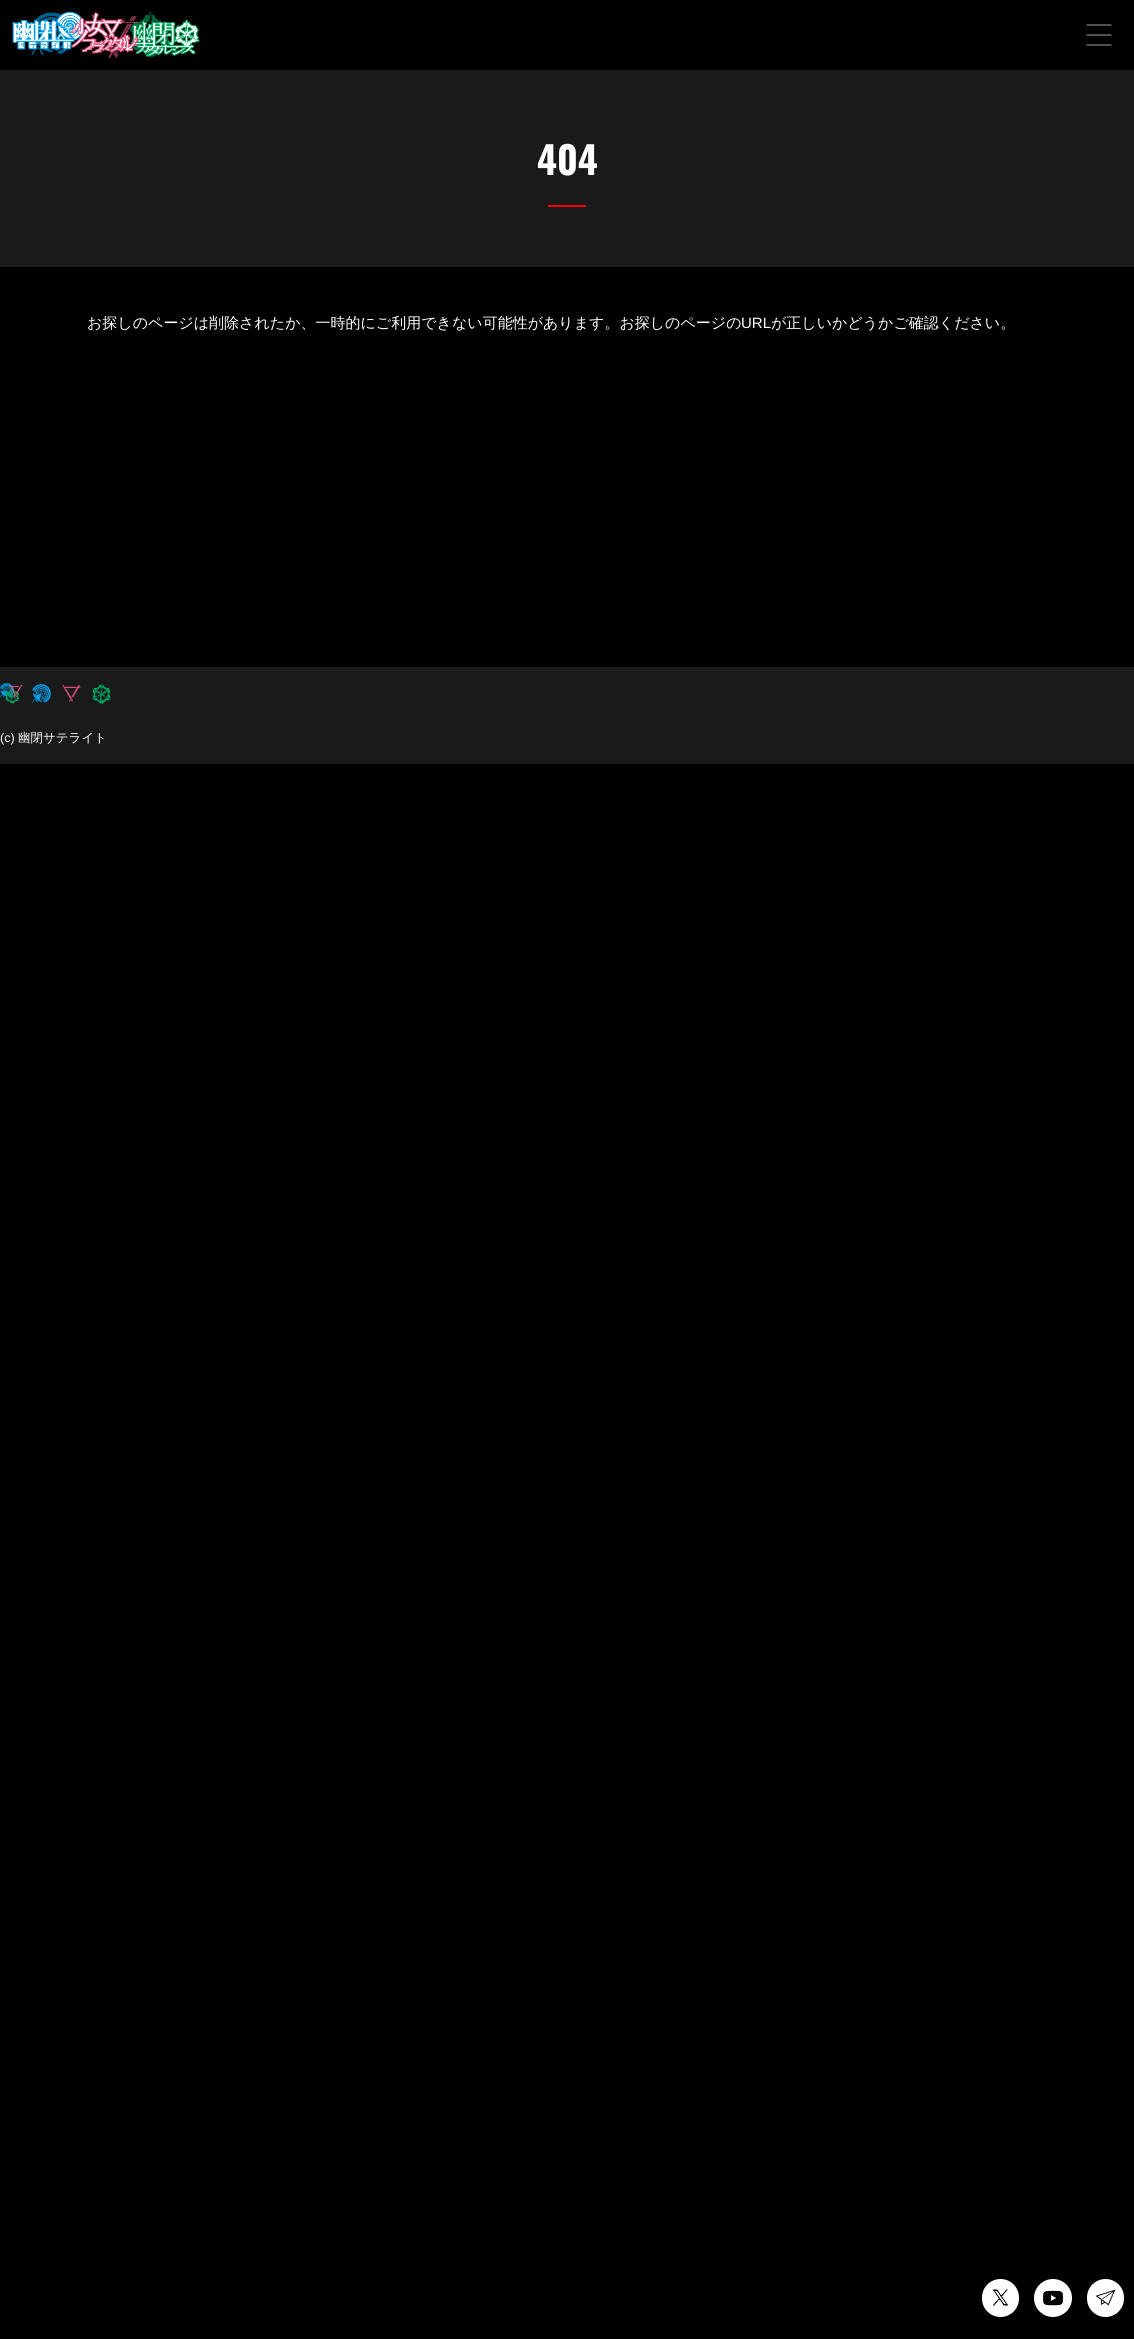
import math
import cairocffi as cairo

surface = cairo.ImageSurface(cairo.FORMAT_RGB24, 1134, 2339)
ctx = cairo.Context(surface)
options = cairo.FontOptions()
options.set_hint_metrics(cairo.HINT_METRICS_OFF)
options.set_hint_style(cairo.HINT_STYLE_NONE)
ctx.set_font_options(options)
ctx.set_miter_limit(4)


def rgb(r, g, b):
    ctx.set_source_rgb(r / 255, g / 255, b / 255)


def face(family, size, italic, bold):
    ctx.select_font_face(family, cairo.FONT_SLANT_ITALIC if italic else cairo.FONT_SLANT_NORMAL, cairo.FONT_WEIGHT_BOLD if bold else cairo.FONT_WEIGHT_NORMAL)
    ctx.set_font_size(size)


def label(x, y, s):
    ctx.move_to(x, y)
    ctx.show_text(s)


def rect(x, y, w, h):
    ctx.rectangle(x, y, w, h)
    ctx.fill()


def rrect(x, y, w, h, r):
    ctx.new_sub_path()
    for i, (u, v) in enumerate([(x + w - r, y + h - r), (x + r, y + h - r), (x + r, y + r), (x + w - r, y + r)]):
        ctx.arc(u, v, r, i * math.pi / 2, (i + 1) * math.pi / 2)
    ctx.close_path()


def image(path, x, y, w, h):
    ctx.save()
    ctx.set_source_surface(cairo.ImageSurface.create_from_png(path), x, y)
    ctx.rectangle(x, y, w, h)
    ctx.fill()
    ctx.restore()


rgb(0, 0, 0)
ctx.paint()
image('image0.png', 12, 11, 188, 48)
image('image1.png', 1086, 24, 26, 22)
rgb(26, 26, 26)
rect(0, 70, 1134, 197)
face('Oswald', 38, 0, 1)
rgb(255, 255, 255)
label(537, 175, '404')
rgb(255, 0, 0)
rect(548, 205, 38, 2)
face('WenQuanYi Zen Hei Medium', 15, 0, 0)
rgb(255, 255, 255)
label(87, 328, 'お探しのページは削除されたか、一時的にご利用できない可能性があります。お探しのページの')
face('Liberation Sans', 15, 0, 0)
label(741, 328, 'URL')
face('WenQuanYi Zen Hei Medium', 15, 0, 0)
label(771, 328, 'が正しいかどうかご確認ください。')
rgb(26, 26, 26)
rect(0, 667, 1134, 97)
image('image2.png', 0, 682, 23, 23)
image('image3.png', 32, 684, 19, 19)
image('image4.png', 62, 684, 19, 18)
image('image5.png', 92, 683, 19, 21)
face('Liberation Sans', 12.5, 0, 0)
rgb(255, 255, 255)
label(0, 742, '(c)')
face('WenQuanYi Zen Hei Medium', 12.5, 0, 0)
label(18, 742, '幽閉サテライト')
rrect(982, 2279, 37, 38, 18.5)
ctx.fill()
image('image6.png', 992, 2289, 17, 17)
ctx.arc(1053, 2298, 19, 0, 2 * math.pi)
ctx.fill()
image('image7.png', 1042, 2290, 22, 16)
rrect(1087, 2279, 37, 38, 18.5)
ctx.fill()
image('image8.png', 1095, 2289, 21, 17)
surface.write_to_png('render.png')
